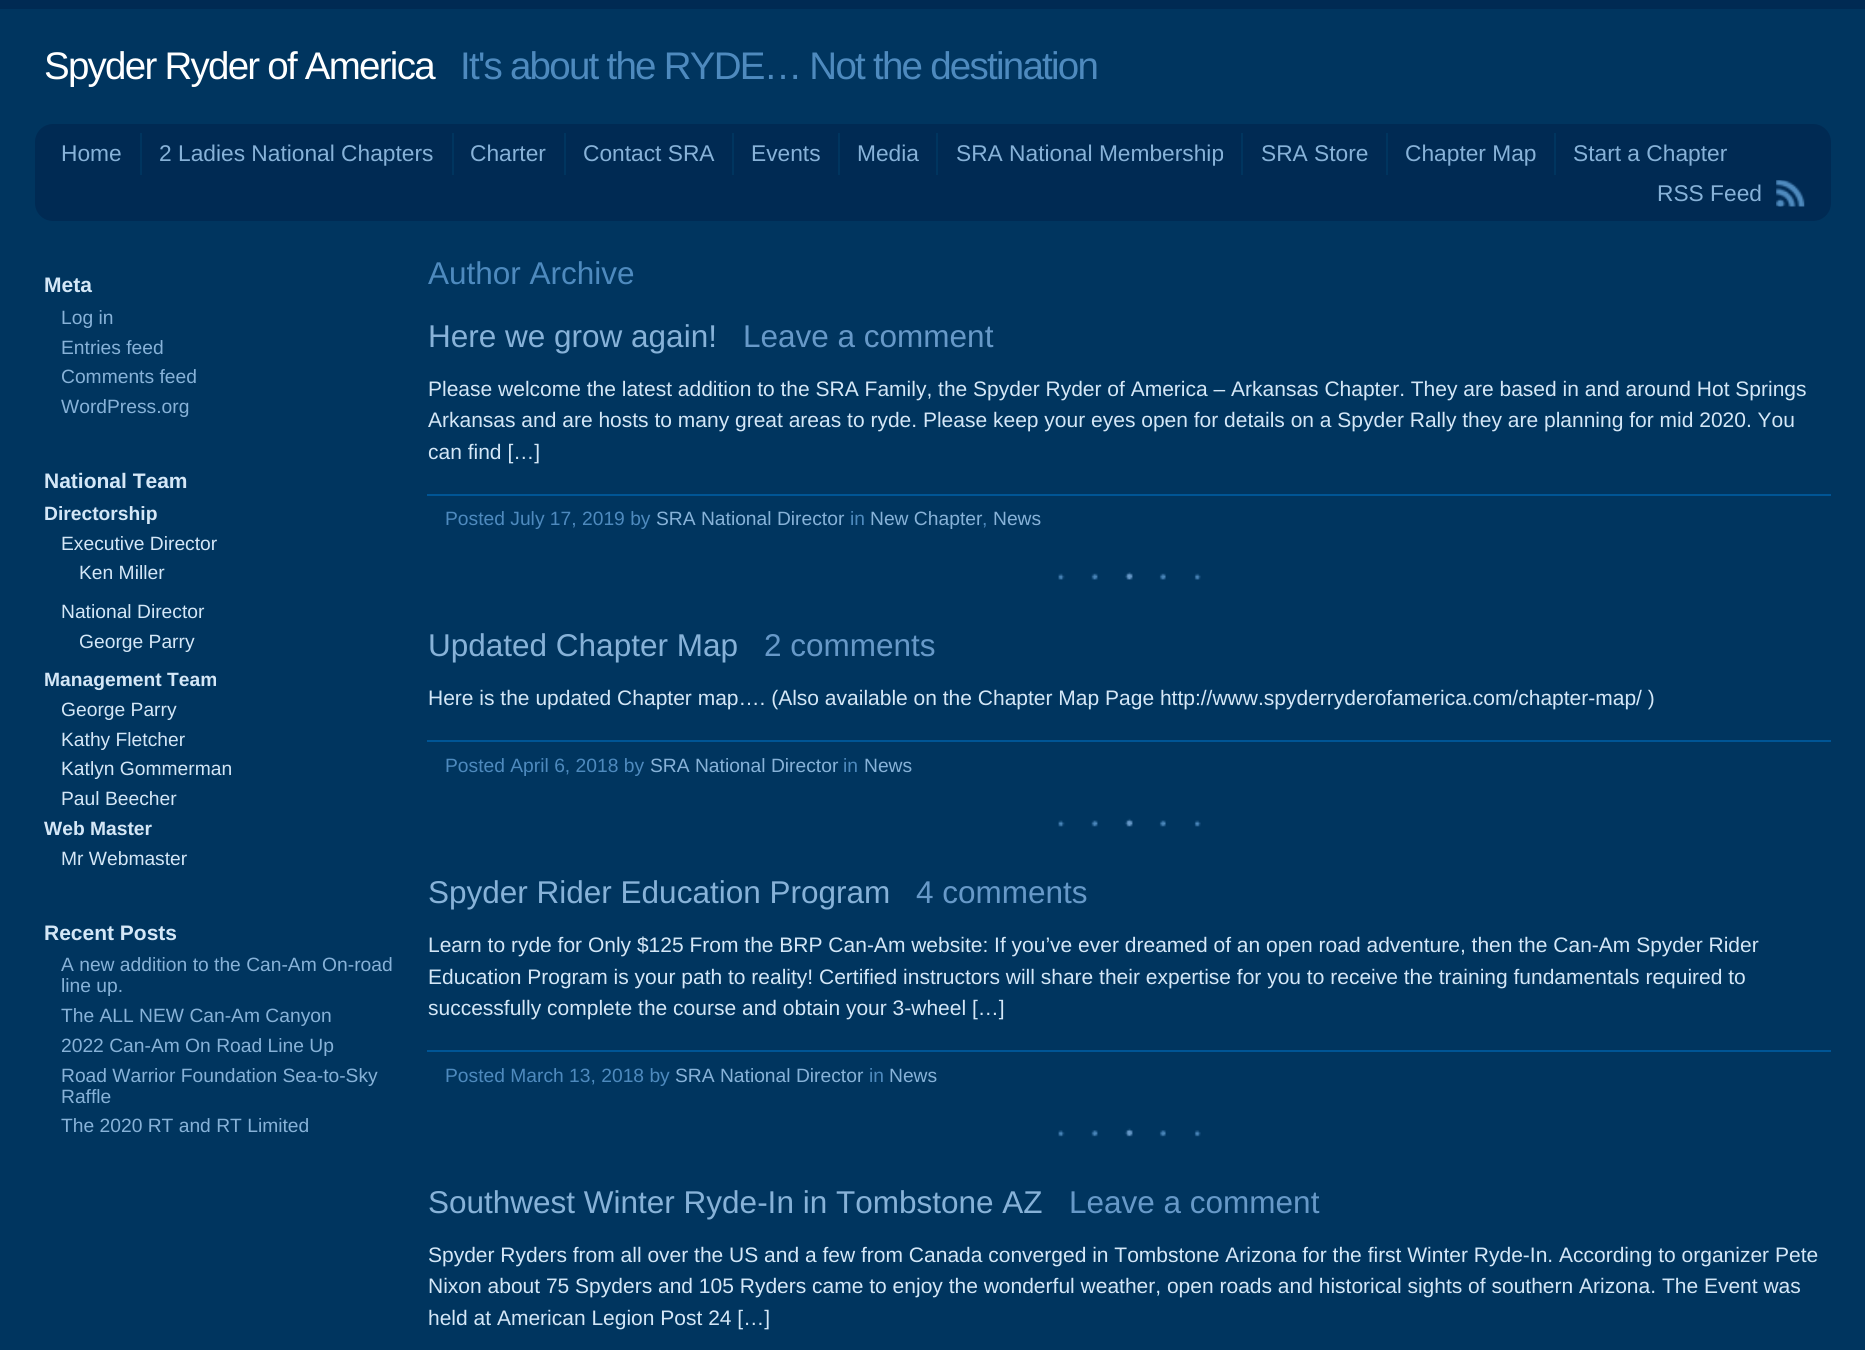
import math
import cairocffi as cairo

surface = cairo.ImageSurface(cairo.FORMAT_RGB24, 1865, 1350)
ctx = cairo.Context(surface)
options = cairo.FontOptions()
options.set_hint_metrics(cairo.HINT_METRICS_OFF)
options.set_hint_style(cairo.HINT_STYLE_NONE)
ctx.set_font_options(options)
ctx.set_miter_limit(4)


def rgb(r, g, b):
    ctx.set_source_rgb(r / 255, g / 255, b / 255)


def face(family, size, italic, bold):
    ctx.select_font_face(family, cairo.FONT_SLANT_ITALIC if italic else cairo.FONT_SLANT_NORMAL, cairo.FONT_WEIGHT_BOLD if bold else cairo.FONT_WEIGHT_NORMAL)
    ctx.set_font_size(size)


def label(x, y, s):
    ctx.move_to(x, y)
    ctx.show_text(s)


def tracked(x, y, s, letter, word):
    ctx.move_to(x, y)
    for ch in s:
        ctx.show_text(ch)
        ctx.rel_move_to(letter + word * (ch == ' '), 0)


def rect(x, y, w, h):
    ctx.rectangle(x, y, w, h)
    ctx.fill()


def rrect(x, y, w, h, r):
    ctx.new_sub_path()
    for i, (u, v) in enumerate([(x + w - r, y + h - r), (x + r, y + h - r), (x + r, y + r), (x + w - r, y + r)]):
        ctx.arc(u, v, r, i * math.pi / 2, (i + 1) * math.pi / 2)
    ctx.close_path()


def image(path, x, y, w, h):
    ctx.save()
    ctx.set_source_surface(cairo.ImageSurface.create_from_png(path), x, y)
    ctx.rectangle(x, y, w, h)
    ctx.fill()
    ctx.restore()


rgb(0, 53, 95)
ctx.paint()
rgb(0, 42, 83)
rect(0, 0, 1865, 9)
face('Liberation Sans', 38.5, 0, 0)
rgb(255, 255, 255)
tracked(44, 79, 'Spyder Ryder of America', -1.75, 0)
rgb(78, 138, 190)
tracked(460, 79, 'It\'s about the RYDE… Not the destination', -1.75, 0)
rgb(0, 42, 83)
rrect(35, 124, 1796, 97, 18)
ctx.fill()
rgb(0, 53, 95)
rect(140, 133, 2, 42)
face('Liberation Sans', 22.75, 0, 0)
rgb(135, 178, 216)
label(61, 161, 'Home')
rgb(0, 53, 95)
rect(452, 133, 2, 42)
rgb(135, 178, 216)
label(159, 161, '2 Ladies National Chapters')
rgb(0, 53, 95)
rect(564, 133, 2, 42)
rgb(135, 178, 216)
label(470, 161, 'Charter')
rgb(0, 53, 95)
rect(732, 133, 2, 42)
rgb(135, 178, 216)
label(583, 161, 'Contact SRA')
rgb(0, 53, 95)
rect(838, 133, 2, 42)
rgb(135, 178, 216)
label(751, 161, 'Events')
rgb(0, 53, 95)
rect(936, 133, 2, 42)
rgb(135, 178, 216)
label(857, 161, 'Media')
rgb(0, 53, 95)
rect(1241, 133, 2, 42)
rgb(135, 178, 216)
label(956, 161, 'SRA National Membership')
rgb(0, 53, 95)
rect(1386, 133, 2, 42)
rgb(135, 178, 216)
label(1261, 161, 'SRA Store')
rgb(0, 53, 95)
rect(1554, 133, 2, 42)
rgb(135, 178, 216)
label(1405, 161, 'Chapter Map')
label(1573, 161, 'Start a Chapter')
label(1657, 201, 'RSS Feed')
image('image0.png', 1776, 180, 29, 27)
face('Liberation Sans', 21, 0, 1)
rgb(212, 231, 247)
label(44, 292, 'Meta')
face('Liberation Sans', 19.25, 0, 0)
rgb(135, 178, 216)
label(61, 324, 'Log in')
label(61, 354, 'Entries feed')
label(61, 383, 'Comments feed')
label(61, 413, 'WordPress.org')
face('Liberation Sans', 21, 0, 1)
rgb(212, 231, 247)
label(44, 488, 'National Team')
face('Liberation Sans', 19.25, 0, 1)
label(44, 520, 'Directorship')
face('Liberation Sans', 19.25, 0, 0)
label(61, 550, 'Executive Director')
label(79, 579, 'Ken Miller')
label(61, 618, 'National Director')
label(79, 648, 'George Parry')
face('Liberation Sans', 19.25, 0, 1)
label(44, 686, 'Management Team')
face('Liberation Sans', 19.25, 0, 0)
label(61, 716, 'George Parry')
label(61, 746, 'Kathy Fletcher')
label(61, 775, 'Katlyn Gommerman')
label(61, 805, 'Paul Beecher')
face('Liberation Sans', 19.25, 0, 1)
label(44, 835, 'Web Master')
face('Liberation Sans', 19.25, 0, 0)
label(61, 865, 'Mr Webmaster')
face('Liberation Sans', 21, 0, 1)
label(44, 940, 'Recent Posts')
face('Liberation Sans', 19.25, 0, 0)
rgb(135, 178, 216)
label(61, 971, 'A new addition to the Can-Am On-road')
label(61, 992, 'line up.')
label(61, 1022, 'The ALL NEW Can-Am Canyon')
label(61, 1052, '2022 Can-Am On Road Line Up')
label(61, 1082, 'Road Warrior Foundation Sea-to-Sky')
label(61, 1103, 'Raffle')
label(61, 1132, 'The 2020 RT and RT Limited')
face('Liberation Sans', 31.5, 0, 0)
rgb(78, 138, 190)
label(428, 284, 'Author Archive')
rgb(135, 178, 216)
label(428, 347, 'Here we grow again!')
rgb(103, 153, 200)
label(743, 347, 'Leave a comment')
face('Liberation Sans', 21, 0, 0)
rgb(212, 231, 247)
label(428, 396, 'Please welcome the latest addition to the SRA Family, the Spyder Ryder of America – Arkansas Chapter. They are based in and around Hot Springs')
label(428, 427, 'Arkansas and are hosts to many great areas to ryde. Please keep your eyes open for details on a Spyder Rally they are planning for mid 2020. You')
label(428, 459, 'can find […]')
image('image1.png', 1058, 572, 143, 8)
rgb(0, 85, 149)
rect(427, 494, 1404, 2)
face('Liberation Sans', 19.25, 0, 0)
rgb(78, 138, 190)
label(445, 525, 'Posted July 17, 2019 by')
rgb(135, 178, 216)
label(656, 525, 'SRA National Director')
rgb(78, 138, 190)
label(850, 525, 'in')
rgb(135, 178, 216)
label(870, 525, 'New Chapter')
rgb(78, 138, 190)
label(982, 525, ',')
rgb(135, 178, 216)
label(993, 525, 'News')
face('Liberation Sans', 31.5, 0, 0)
label(428, 656, 'Updated Chapter Map')
rgb(103, 153, 200)
label(764, 656, '2 comments')
face('Liberation Sans', 21, 0, 0)
rgb(212, 231, 247)
label(428, 705, 'Here is the updated Chapter map…. (Also available on the Chapter Map Page http://www.spyderryderofamerica.com/chapter-map/ )')
image('image2.png', 1058, 818, 143, 9)
rgb(0, 85, 149)
rect(427, 740, 1404, 2)
face('Liberation Sans', 19.25, 0, 0)
rgb(78, 138, 190)
label(445, 772, 'Posted April 6, 2018 by')
rgb(135, 178, 216)
label(650, 772, 'SRA National Director')
rgb(78, 138, 190)
label(843, 772, 'in')
rgb(135, 178, 216)
label(864, 772, 'News')
face('Liberation Sans', 31.5, 0, 0)
label(428, 903, 'Spyder Rider Education Program')
rgb(103, 153, 200)
label(916, 903, '4 comments')
face('Liberation Sans', 21, 0, 0)
rgb(212, 231, 247)
label(428, 952, 'Learn to ryde for Only $125 From the BRP Can-Am website: If you’ve ever dreamed of an open road adventure, then the Can-Am Spyder Rider')
label(428, 984, 'Education Program is your path to reality! Certified instructors will share their expertise for you to receive the training fundamentals required to')
label(428, 1015, 'successfully complete the course and obtain your 3-wheel […]')
image('image3.png', 1058, 1128, 143, 9)
rgb(0, 85, 149)
rect(427, 1050, 1404, 2)
face('Liberation Sans', 19.25, 0, 0)
rgb(78, 138, 190)
label(445, 1082, 'Posted March 13, 2018 by')
rgb(135, 178, 216)
label(675, 1082, 'SRA National Director')
rgb(78, 138, 190)
label(869, 1082, 'in')
rgb(135, 178, 216)
label(889, 1082, 'News')
face('Liberation Sans', 31.5, 0, 0)
label(428, 1213, 'Southwest Winter Ryde-In in Tombstone AZ')
rgb(103, 153, 200)
label(1069, 1213, 'Leave a comment')
face('Liberation Sans', 21, 0, 0)
rgb(212, 231, 247)
label(428, 1262, 'Spyder Ryders from all over the US and a few from Canada converged in Tombstone Arizona for the first Winter Ryde-In. According to organizer Pete')
label(428, 1293, 'Nixon about 75 Spyders and 105 Ryders came to enjoy the wonderful weather, open roads and historical sights of southern Arizona. The Event was')
label(428, 1325, 'held at American Legion Post 24 […]')
surface.write_to_png('render.png')
